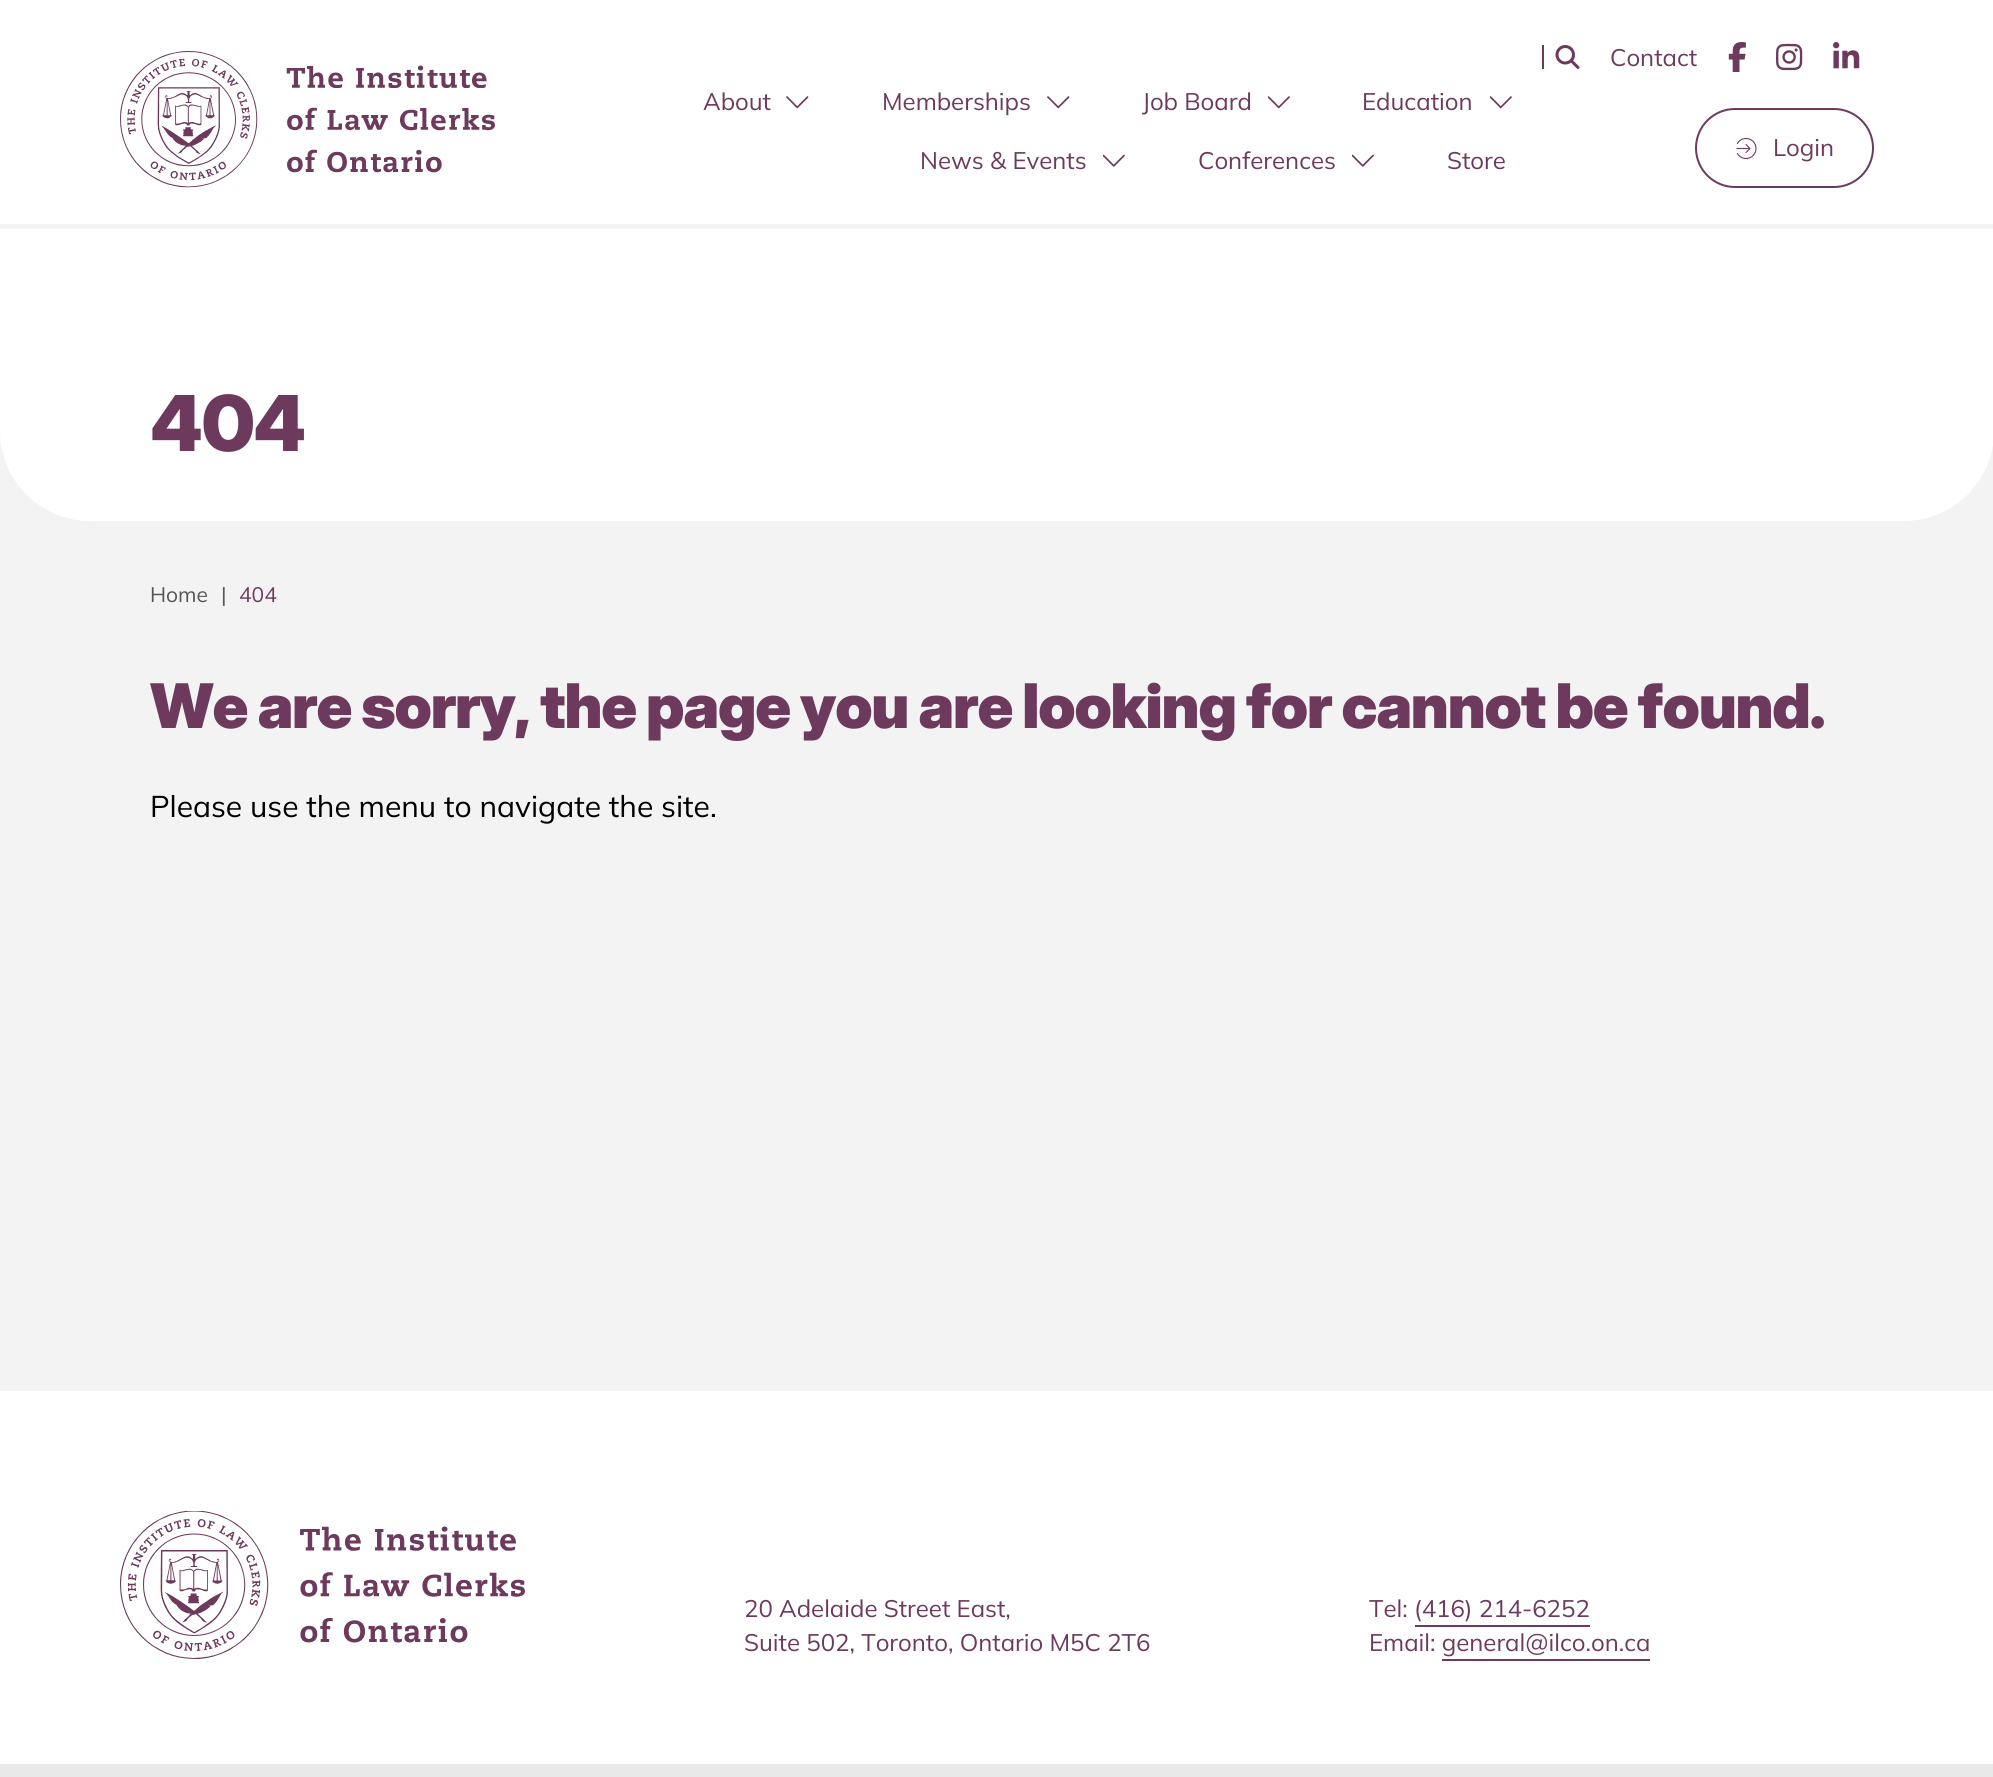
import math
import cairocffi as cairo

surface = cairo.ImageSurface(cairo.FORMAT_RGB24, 1993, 1777)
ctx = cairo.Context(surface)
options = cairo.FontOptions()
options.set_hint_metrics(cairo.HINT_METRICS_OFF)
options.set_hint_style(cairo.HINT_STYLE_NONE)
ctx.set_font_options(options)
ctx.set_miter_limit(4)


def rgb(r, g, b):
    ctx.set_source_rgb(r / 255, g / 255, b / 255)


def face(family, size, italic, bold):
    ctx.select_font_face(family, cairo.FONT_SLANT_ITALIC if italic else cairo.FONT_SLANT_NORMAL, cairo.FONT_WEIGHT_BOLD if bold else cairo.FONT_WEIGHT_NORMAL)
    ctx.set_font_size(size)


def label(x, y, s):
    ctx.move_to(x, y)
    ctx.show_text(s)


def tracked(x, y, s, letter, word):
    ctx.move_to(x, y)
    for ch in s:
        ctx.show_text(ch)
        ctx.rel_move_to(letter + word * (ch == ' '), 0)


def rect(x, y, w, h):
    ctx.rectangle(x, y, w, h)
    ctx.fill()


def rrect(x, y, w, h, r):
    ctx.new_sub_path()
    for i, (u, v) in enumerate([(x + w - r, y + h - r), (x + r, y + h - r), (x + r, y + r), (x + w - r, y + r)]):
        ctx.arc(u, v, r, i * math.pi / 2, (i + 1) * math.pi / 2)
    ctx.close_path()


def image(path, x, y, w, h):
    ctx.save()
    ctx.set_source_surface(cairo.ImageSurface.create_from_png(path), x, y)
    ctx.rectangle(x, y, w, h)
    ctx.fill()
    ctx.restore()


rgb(243, 243, 243)
ctx.paint()
rgb(255, 255, 255)
rect(0, 0, 1993, 221)
ctx.new_path()
ctx.move_to(0, 221)
ctx.line_to(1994, 221)
ctx.line_to(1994, 431)
ctx.curve_to(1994, 480.5, 1953.5, 521, 1904, 521)
ctx.line_to(90, 521)
ctx.curve_to(40.5, 521, 0, 480.5, 0, 431)
ctx.close_path()
ctx.fill()
rgb(243, 243, 243)
rect(0, 224, 1993, 5)
image('image0.png', 120, 51, 375, 137)
face('Mulish', 24, 0, 0)
rgb(109, 58, 93)
label(703, 110, 'About')
image('image1.png', 786, 96, 23, 13)
label(882, 110, 'Memberships')
image('image1.png', 1047, 96, 23, 13)
label(1142, 110, 'Job Board')
image('image2.png', 1268, 96, 22, 13)
label(1362, 110, 'Education')
image('image2.png', 1490, 96, 22, 13)
label(920, 169, 'News & Events')
image('image3.png', 1103, 154, 22, 13)
label(1198, 169, 'Conferences')
image('image3.png', 1352, 154, 22, 13)
label(1447, 169, 'Store')
rect(1542, 45, 2, 24)
image('image4.png', 1555, 45, 25, 24)
label(1610, 66, 'Contact')
image('image5.png', 1728, 42, 18, 30)
image('image6.png', 1776, 43, 27, 28)
image('image7.png', 1833, 42, 27, 27)
rrect(1696, 109, 177, 78, 39)
ctx.stroke()
image('image8.png', 1736, 138, 21, 21)
label(1773, 156, 'Login')
face('Inter Black', 77, 0, 0)
tracked(150, 451, '404', -1.17, 0)
face('Mulish', 21, 0, 0)
rgb(85, 85, 85)
label(150, 602, 'Home')
label(221, 602, '|')
rgb(109, 58, 93)
label(239, 602, '404')
face('Inter Black', 61.5, 0, 0)
tracked(150, 728, 'We are sorry, the page you are looking for cannot be found.', -1.17, 0)
face('Mulish', 30, 0, 0)
rgb(0, 0, 0)
label(150, 817, 'Please use the menu to navigate the site.')
rgb(255, 255, 255)
rect(0, 1391, 1993, 373)
image('image9.png', 120, 1511, 405, 148)
face('Mulish', 24, 0, 0)
rgb(109, 58, 93)
label(744, 1617, '20 Adelaide Street East,')
label(744, 1651, 'Suite 502, Toronto, Ontario M5C 2T6')
label(1369, 1617, 'Tel: (416) 214-6252')
rect(1415, 1625, 175, 2)
label(1369, 1651, 'Email: general@ilco.on.ca')
rect(1442, 1659, 208, 2)
rgb(233, 233, 233)
rect(0, 1764, 1993, 13)
surface.write_to_png('render.png')
